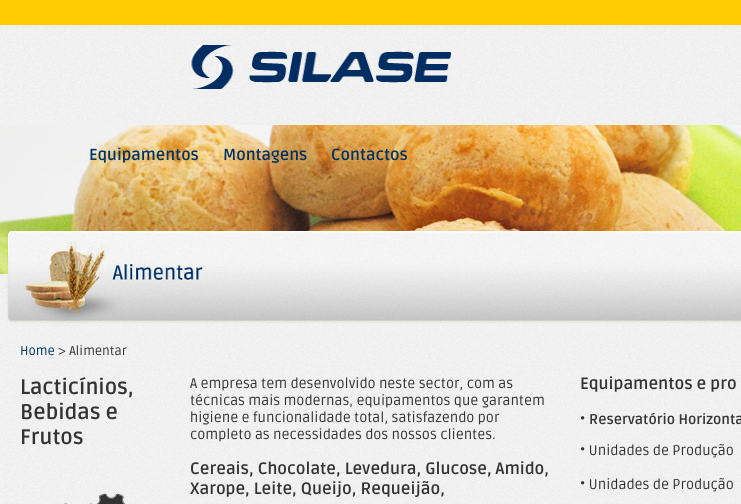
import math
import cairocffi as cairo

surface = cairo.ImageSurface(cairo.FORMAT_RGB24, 741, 504)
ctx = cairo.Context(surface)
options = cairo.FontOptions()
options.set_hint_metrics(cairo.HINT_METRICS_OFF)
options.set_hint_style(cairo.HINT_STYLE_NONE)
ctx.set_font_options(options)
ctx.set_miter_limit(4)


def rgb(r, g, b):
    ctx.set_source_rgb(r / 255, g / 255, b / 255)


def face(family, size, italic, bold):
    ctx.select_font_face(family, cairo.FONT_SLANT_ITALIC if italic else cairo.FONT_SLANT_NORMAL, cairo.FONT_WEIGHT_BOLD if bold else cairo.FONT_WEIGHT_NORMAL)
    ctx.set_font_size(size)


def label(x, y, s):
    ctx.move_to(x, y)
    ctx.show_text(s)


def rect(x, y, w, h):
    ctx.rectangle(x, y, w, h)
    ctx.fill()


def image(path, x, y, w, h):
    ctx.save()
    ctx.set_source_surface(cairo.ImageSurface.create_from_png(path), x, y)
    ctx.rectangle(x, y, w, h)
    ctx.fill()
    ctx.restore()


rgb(255, 255, 255)
ctx.paint()
image('image0.png', 0, 25, 741, 479)
rgb(255, 204, 3)
rect(0, 0, 741, 25)
image('image1.png', 190, 45, 261, 44)
image('image2.png', 0, 125, 741, 198)
face('Ruda', 16, 0, 1)
rgb(0, 51, 102)
label(89, 160, 'Equipamentos')
label(223, 160, 'Montagens')
label(331, 160, 'Contactos')
face('Ruda', 12.75, 0, 0)
label(20, 355, 'Home')
rgb(51, 51, 51)
label(58, 355, '> Alimentar')
face('Ruda', 21, 0, 1)
label(20, 394, 'Lacticínios,')
label(20, 419, 'Bebidas e')
label(20, 444, 'Frutos')
image('image3.png', 64, 493, 61, 11)
face('Ruda', 14, 0, 0)
label(190, 388, 'A empresa tem desenvolvido neste sector, com as')
label(190, 405, 'técnicas mais modernas, equipamentos que garantem')
label(190, 422, 'higiene e funcionalidade total, satisfazendo por')
label(190, 439, 'completo as necessidades dos nossos clientes.')
face('Ruda', 16.4, 0, 1)
label(190, 474, 'Cereais, Chocolate, Levedura, Glucose, Amido,')
label(190, 494, 'Xarope, Leite, Queijo, Requeijão,')
label(580, 389, 'Equipamentos e pro')
face('Ruda', 14, 0, 0)
label(580, 424, '•')
face('Ruda', 14, 0, 1)
label(589, 424, 'Reservatório Horizonta')
face('Ruda', 14, 0, 0)
label(580, 455, '• Unidades de Produção')
label(580, 489, '• Unidades de Produção')
surface.write_to_png('render.png')
